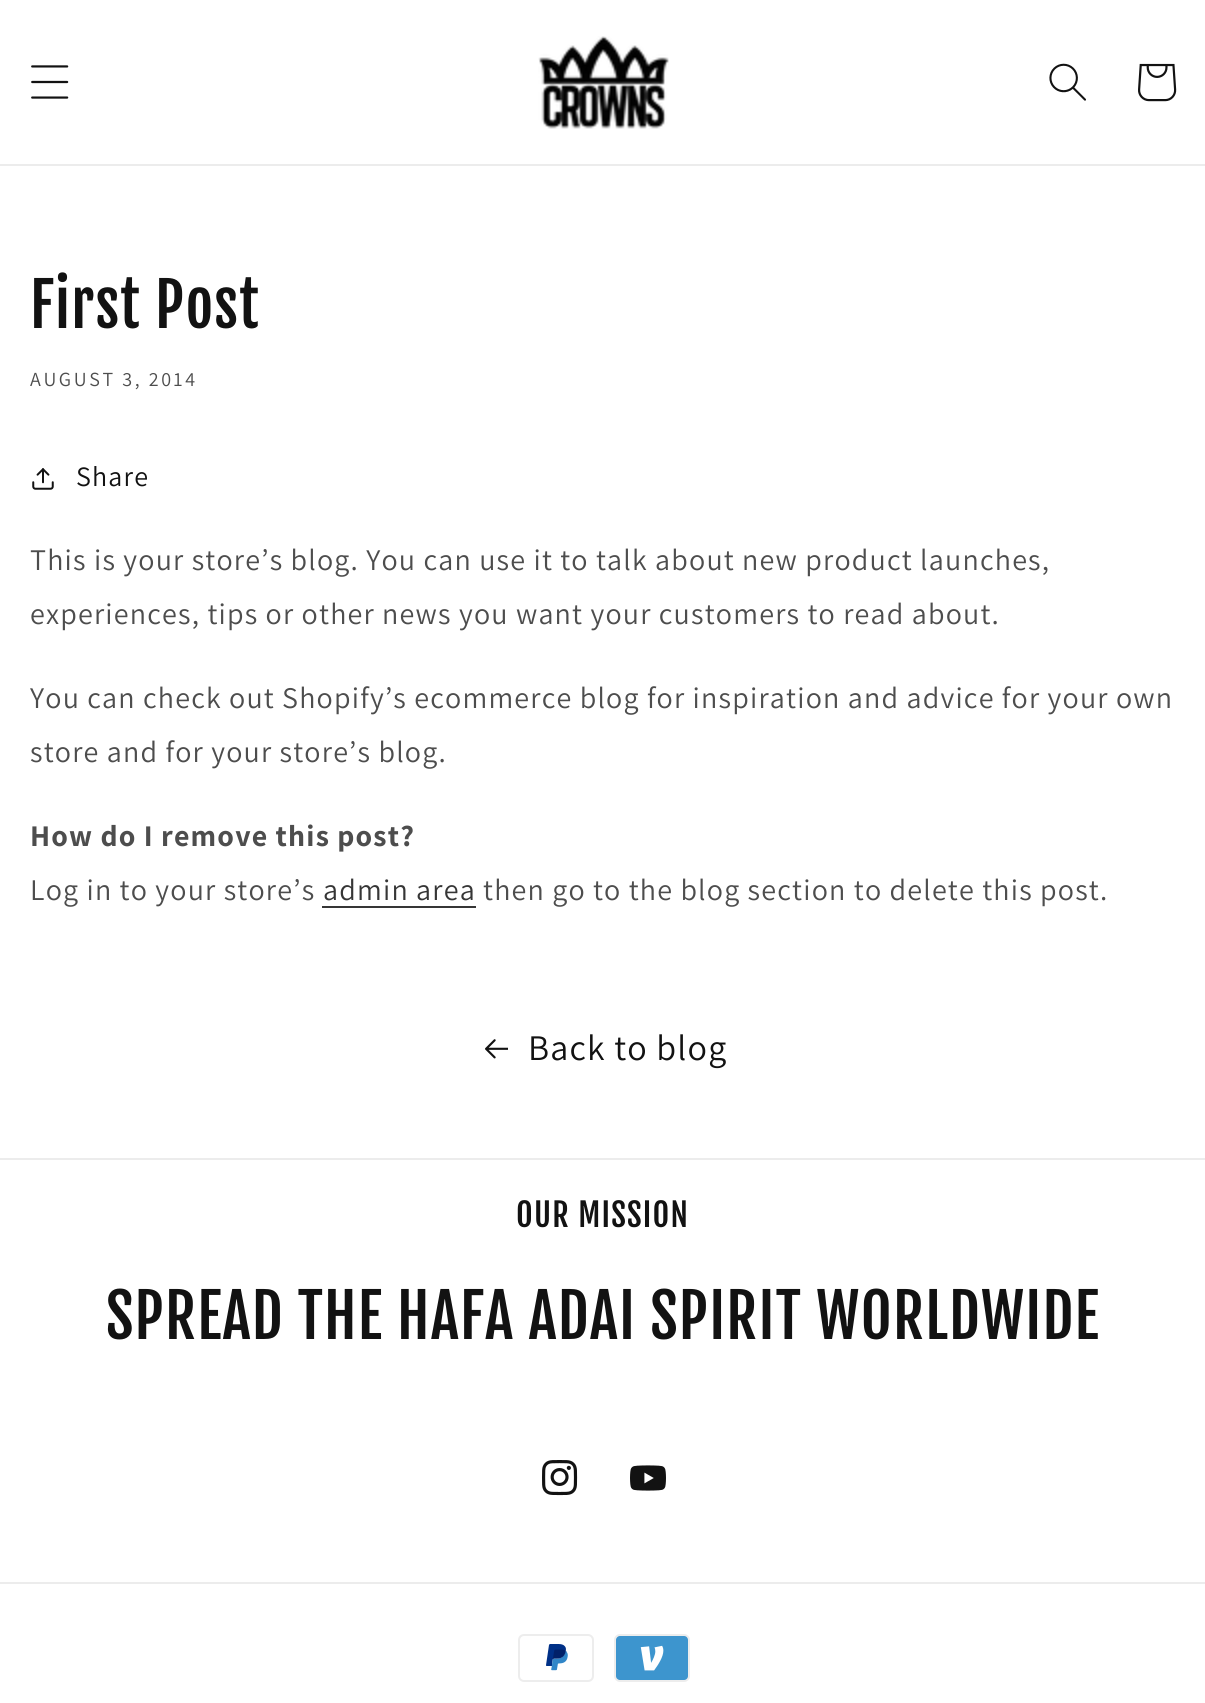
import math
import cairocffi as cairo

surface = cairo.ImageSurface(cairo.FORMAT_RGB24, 1205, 1703)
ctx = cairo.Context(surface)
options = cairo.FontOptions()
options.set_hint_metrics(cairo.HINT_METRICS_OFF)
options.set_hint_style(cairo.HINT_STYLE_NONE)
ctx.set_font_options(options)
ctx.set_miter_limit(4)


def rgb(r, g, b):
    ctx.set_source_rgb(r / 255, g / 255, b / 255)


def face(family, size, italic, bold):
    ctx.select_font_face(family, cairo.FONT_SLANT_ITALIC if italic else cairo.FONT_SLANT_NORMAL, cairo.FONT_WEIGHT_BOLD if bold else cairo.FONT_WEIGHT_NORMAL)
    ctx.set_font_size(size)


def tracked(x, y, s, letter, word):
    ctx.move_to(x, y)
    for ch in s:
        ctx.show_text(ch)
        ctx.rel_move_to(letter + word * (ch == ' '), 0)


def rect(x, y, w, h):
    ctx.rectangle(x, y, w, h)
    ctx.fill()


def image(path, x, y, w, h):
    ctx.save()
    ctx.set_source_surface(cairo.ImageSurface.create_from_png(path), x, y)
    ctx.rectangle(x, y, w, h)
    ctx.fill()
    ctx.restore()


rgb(255, 255, 255)
ctx.paint()
rgb(236, 236, 236)
rect(0, 164, 1205, 2)
image('image0.png', 31, 65, 38, 34)
image('image1.png', 538, 36, 131, 93)
image('image2.png', 1049, 63, 37, 38)
image('image3.png', 1138, 63, 39, 39)
face('Fjalla One', 60, 0, 0)
rgb(18, 18, 18)
tracked(30, 328, 'First Post', 1.2, 0)
face('Assistant', 20, 0, 0)
rgb(77, 77, 77)
tracked(30, 386, 'AUGUST 3, 2014', 2.6, 0)
image('image4.png', 32, 468, 22, 22)
face('Assistant', 28, 0, 0)
rgb(18, 18, 18)
tracked(76, 486, 'Share', 1.2, 0)
face('Assistant', 30, 0, 0)
rgb(77, 77, 77)
tracked(30, 570, 'This is your store’s blog. You can use it to talk about new product launches,', 1.2, 0)
tracked(30, 624, 'experiences, tips or other news you want your customers to read about.', 1.2, 0)
tracked(30, 708, 'You can check out Shopify’s ecommerce blog for inspiration and advice for your own', 1.2, 0)
tracked(30, 762, 'store and for your store’s blog.', 1.2, 0)
face('Assistant', 30, 0, 1)
tracked(30, 846, 'How do I remove this post?', 1.2, 0)
face('Assistant', 30, 0, 0)
tracked(30, 900, 'Log in to your store’s', 1.2, 0)
rgb(54, 54, 54)
tracked(323, 900, 'admin area', 1.2, 0)
rect(322, 906, 154, 2)
rgb(77, 77, 77)
tracked(483, 900, 'then go to the blog section to delete this post.', 1.2, 0)
image('image5.png', 485, 1039, 23, 20)
face('Assistant', 36, 0, 0)
rgb(18, 18, 18)
tracked(528, 1060, 'Back to blog', 1.2, 0)
rgb(236, 236, 236)
rect(0, 1158, 1205, 2)
face('Fjalla One', 32, 0, 0)
rgb(18, 18, 18)
tracked(516, 1227, 'OUR MISSION', 1.2, 0)
face('Fjalla One', 60, 0, 0)
tracked(106, 1339, 'SPREAD THE HAFA ADAI SPIRIT WORLDWIDE', 1.2, 0)
image('image6.png', 542, 1460, 36, 36)
image('image7.png', 630, 1465, 36, 26)
rgb(236, 236, 236)
rect(0, 1582, 1205, 2)
image('image8.png', 518, 1634, 76, 48)
image('image9.png', 614, 1634, 76, 48)
surface.write_to_png('render.png')
